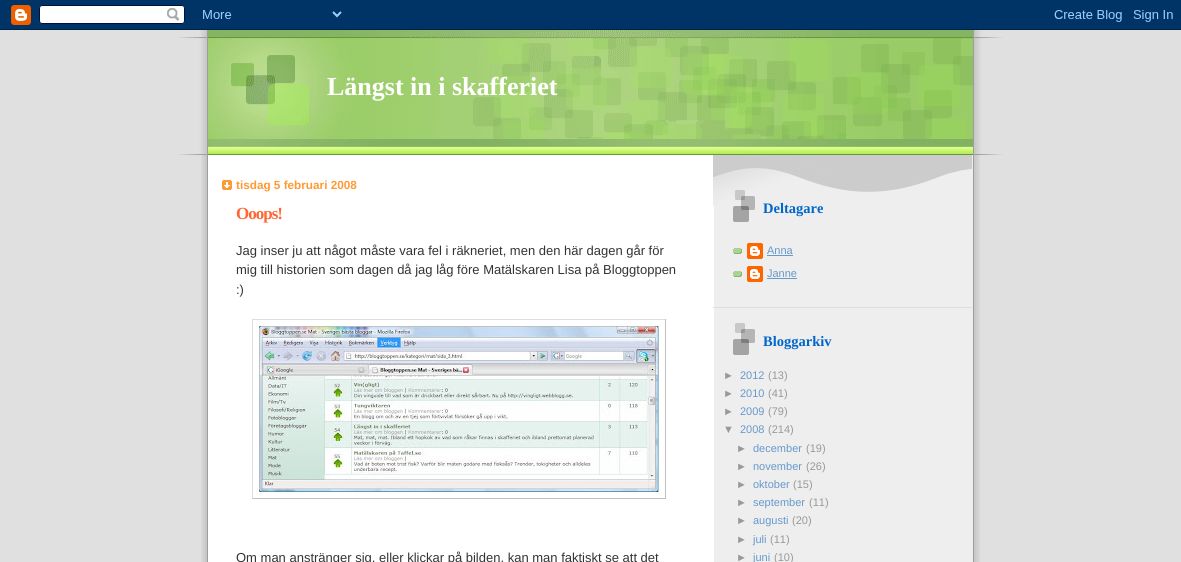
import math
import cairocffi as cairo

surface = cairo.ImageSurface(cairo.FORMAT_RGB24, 1181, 562)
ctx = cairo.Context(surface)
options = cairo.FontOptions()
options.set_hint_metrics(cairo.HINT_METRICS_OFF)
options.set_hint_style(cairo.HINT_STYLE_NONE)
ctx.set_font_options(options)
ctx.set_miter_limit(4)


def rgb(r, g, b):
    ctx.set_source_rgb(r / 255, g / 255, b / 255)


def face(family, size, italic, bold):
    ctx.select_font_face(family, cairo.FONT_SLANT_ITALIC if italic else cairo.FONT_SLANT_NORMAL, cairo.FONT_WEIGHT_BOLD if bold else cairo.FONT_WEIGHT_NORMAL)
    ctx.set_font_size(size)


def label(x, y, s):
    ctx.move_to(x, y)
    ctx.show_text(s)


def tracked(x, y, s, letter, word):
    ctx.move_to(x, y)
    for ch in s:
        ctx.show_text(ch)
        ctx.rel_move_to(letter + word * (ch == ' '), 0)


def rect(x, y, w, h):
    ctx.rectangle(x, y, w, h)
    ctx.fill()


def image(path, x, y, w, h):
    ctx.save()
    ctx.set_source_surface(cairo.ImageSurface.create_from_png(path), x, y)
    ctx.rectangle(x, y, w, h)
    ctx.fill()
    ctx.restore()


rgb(224, 224, 224)
ctx.paint()
image('image0.png', 0, 0, 1181, 30)
image('image1.png', 201, 155, 779, 407)
image('image2.png', 178, 30, 825, 124)
image('image3.png', 178, 139, 825, 16)
face('Liberation Serif', 26, 0, 1)
rgb(255, 255, 255)
label(327, 95, 'Längst in i skafferiet')
image('image4.png', 222, 180, 10, 10)
face('Liberation Sans', 11.75, 0, 1)
rgb(255, 153, 51)
label(236, 189, 'tisdag 5 februari 2008')
face('Liberation Serif', 17, 0, 1)
rgb(255, 102, 51)
tracked(236, 219, 'Ooops!', -1, 0)
face('Liberation Sans', 13, 0, 0)
rgb(51, 51, 51)
label(236, 255, 'Jag inser ju att något måste vara fel i räkneriet, men den här dagen går för')
label(236, 274, 'mig till historien som dagen då jag låg före Matälskaren Lisa på Bloggtoppen')
label(236, 294, ':)')
rgb(221, 221, 221)
rect(252, 319, 414, 1)
rgb(192, 192, 192)
rect(665, 319, 1, 180)
rect(252, 498, 414, 1)
rgb(221, 221, 221)
rect(252, 319, 1, 180)
image('image5.png', 259, 326, 400, 166)
rgb(51, 51, 51)
label(236, 562, 'Om man anstränger sig, eller klickar på bilden, kan man faktiskt se att det')
image('image6.png', 713, 155, 259, 51)
rgb(221, 221, 221)
rect(713, 307, 259, 1)
image('image7.png', 733, 190, 22, 32)
face('Liberation Serif', 14.5, 0, 1)
rgb(0, 102, 204)
label(763, 213, 'Deltagare')
image('image8.png', 733, 248, 9, 6)
image('image9.png', 747, 243, 16, 16)
face('Liberation Sans', 11, 0, 0)
rgb(102, 153, 204)
label(767, 254, 'Anna')
rect(767, 255, 26, 1)
image('image8.png', 733, 271, 9, 6)
image('image9.png', 747, 266, 16, 16)
label(767, 277, 'Janne')
rect(767, 278, 30, 1)
image('image10.png', 733, 323, 22, 32)
face('Liberation Serif', 14.5, 0, 1)
rgb(0, 102, 204)
label(763, 346, 'Bloggarkiv')
face('Liberation Sans', 11, 0, 0)
rgb(153, 153, 153)
label(723, 379, '►')
rgb(102, 153, 204)
label(740, 379, '2012')
rgb(153, 153, 153)
label(768, 379, '(13)')
label(723, 397, '►')
rgb(102, 153, 204)
label(740, 397, '2010')
rgb(153, 153, 153)
label(768, 397, '(41)')
label(723, 415, '►')
rgb(102, 153, 204)
label(740, 415, '2009')
rgb(153, 153, 153)
label(768, 415, '(79)')
label(723, 433, '▼')
rgb(102, 153, 204)
label(740, 433, '2008')
rgb(153, 153, 153)
label(768, 433, '(214)')
label(736, 452, '►')
rgb(102, 153, 204)
label(753, 452, 'december')
rgb(153, 153, 153)
label(806, 452, '(19)')
label(736, 470, '►')
rgb(102, 153, 204)
label(753, 470, 'november')
rgb(153, 153, 153)
label(806, 470, '(26)')
label(736, 488, '►')
rgb(102, 153, 204)
label(753, 488, 'oktober')
rgb(153, 153, 153)
label(793, 488, '(15)')
label(736, 506, '►')
rgb(102, 153, 204)
label(753, 506, 'september')
rgb(153, 153, 153)
label(809, 506, '(11)')
label(736, 524, '►')
rgb(102, 153, 204)
label(753, 524, 'augusti')
rgb(153, 153, 153)
label(792, 524, '(20)')
label(736, 543, '►')
rgb(102, 153, 204)
label(753, 543, 'juli')
rgb(153, 153, 153)
label(770, 543, '(11)')
label(736, 561, '►')
rgb(102, 153, 204)
label(753, 561, 'juni')
rgb(153, 153, 153)
label(774, 561, '(10)')
surface.write_to_png('render.png')
